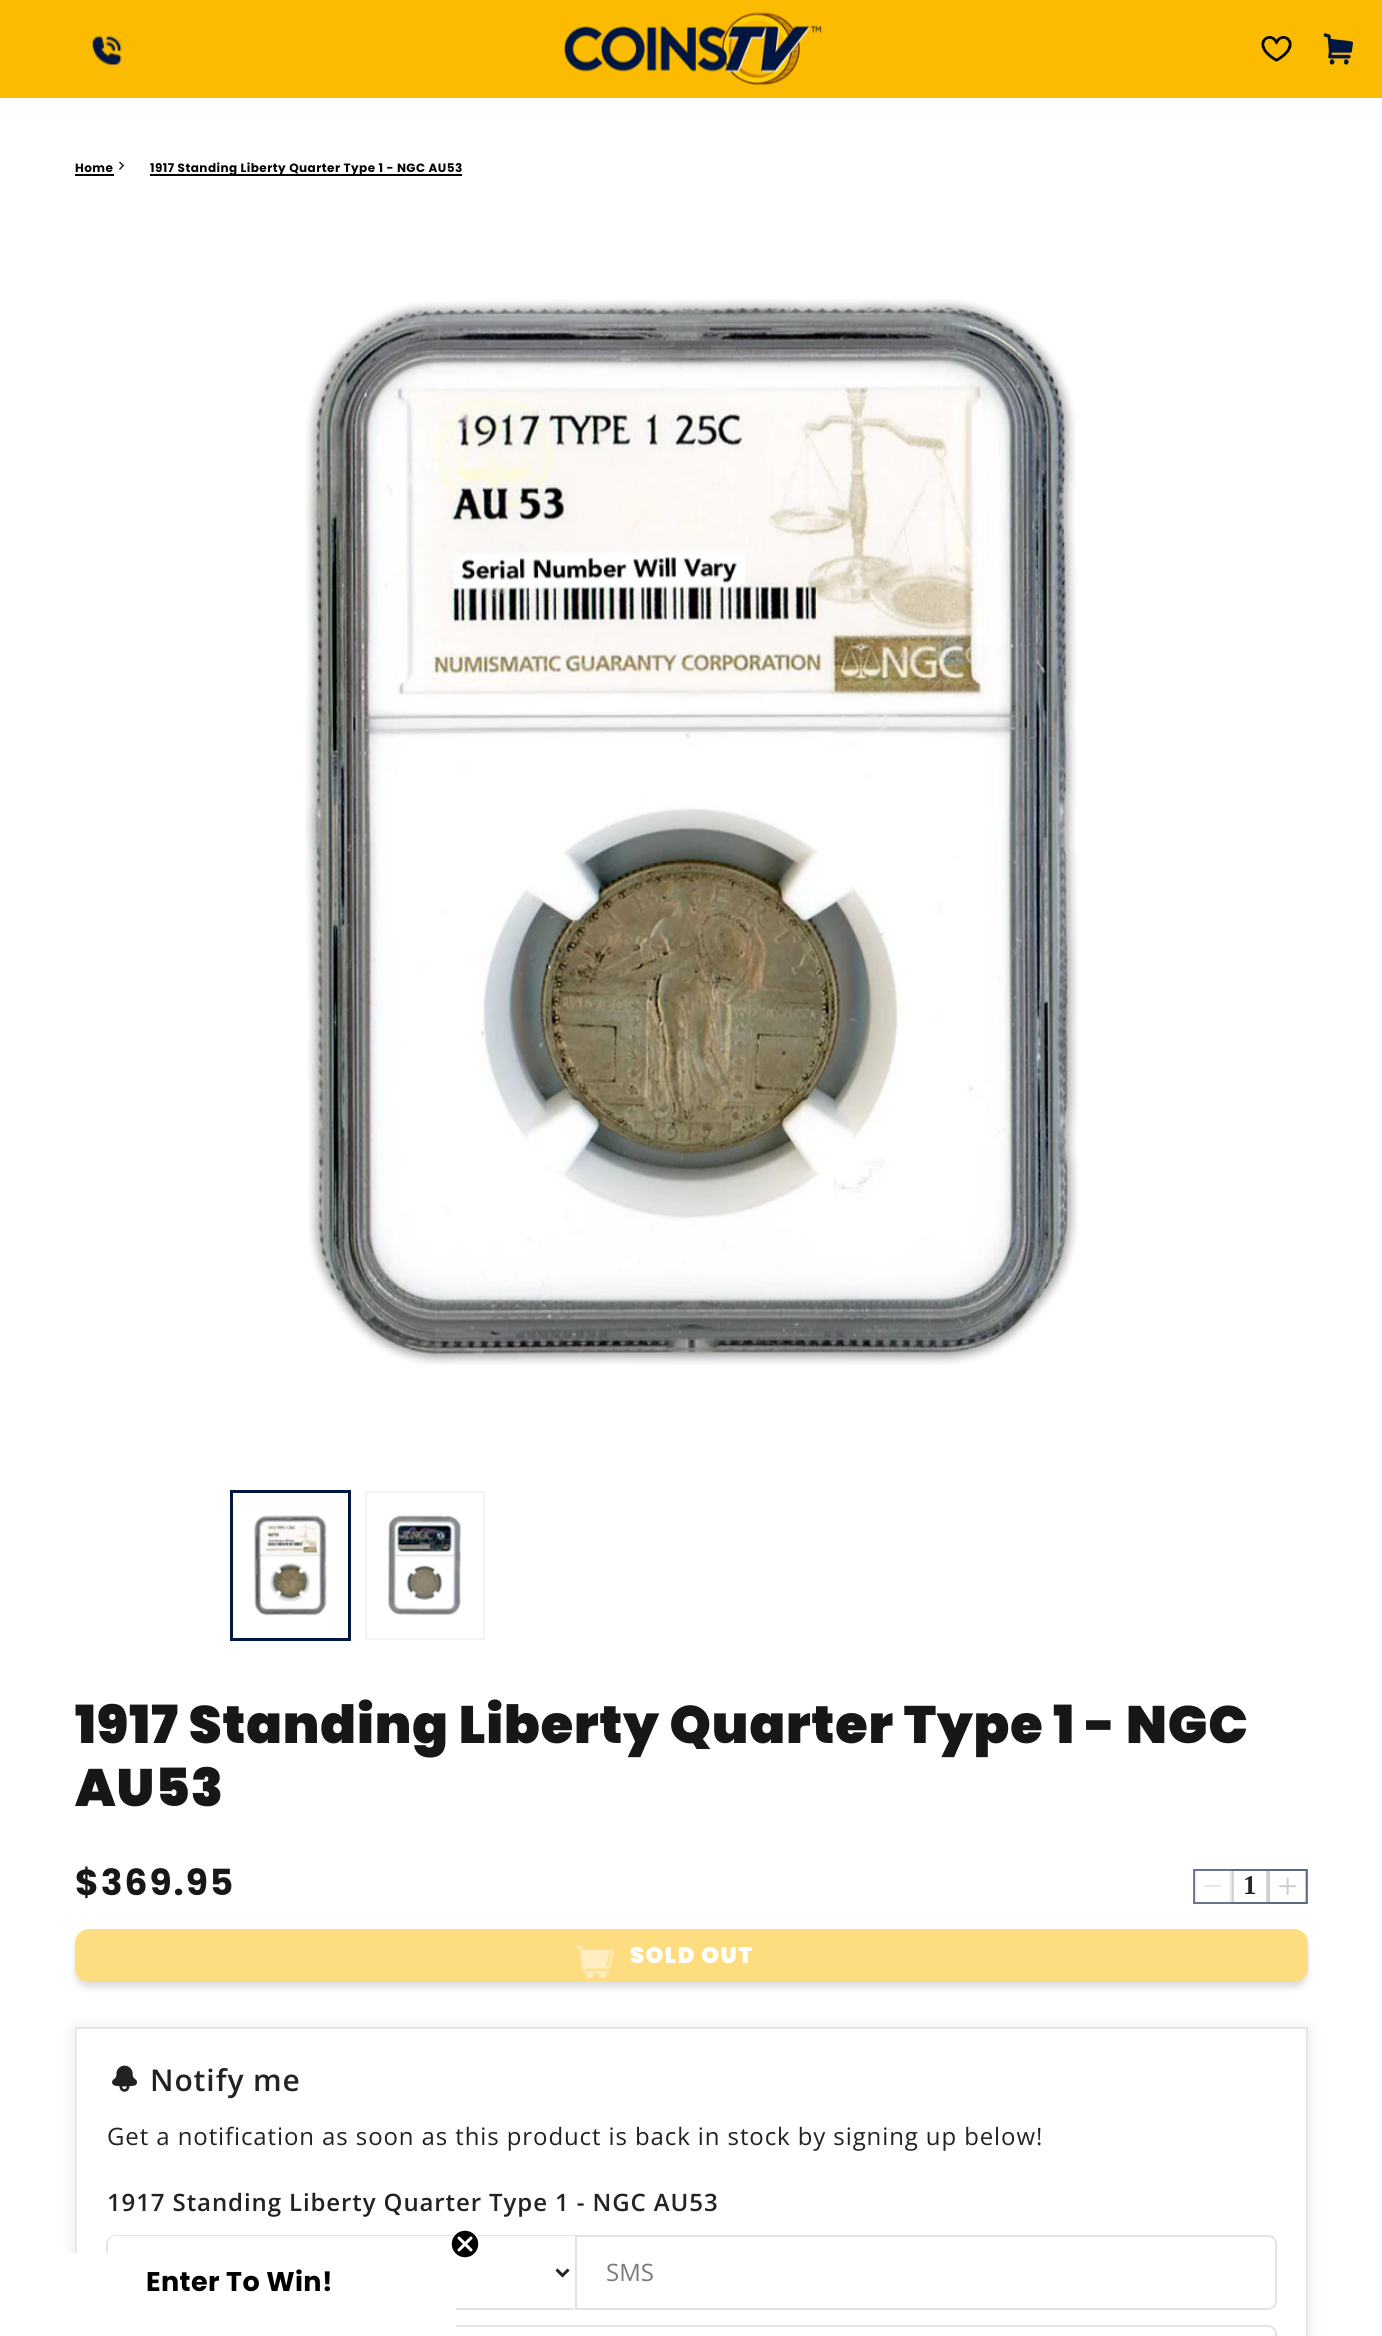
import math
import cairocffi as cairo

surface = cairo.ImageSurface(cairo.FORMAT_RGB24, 1382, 2336)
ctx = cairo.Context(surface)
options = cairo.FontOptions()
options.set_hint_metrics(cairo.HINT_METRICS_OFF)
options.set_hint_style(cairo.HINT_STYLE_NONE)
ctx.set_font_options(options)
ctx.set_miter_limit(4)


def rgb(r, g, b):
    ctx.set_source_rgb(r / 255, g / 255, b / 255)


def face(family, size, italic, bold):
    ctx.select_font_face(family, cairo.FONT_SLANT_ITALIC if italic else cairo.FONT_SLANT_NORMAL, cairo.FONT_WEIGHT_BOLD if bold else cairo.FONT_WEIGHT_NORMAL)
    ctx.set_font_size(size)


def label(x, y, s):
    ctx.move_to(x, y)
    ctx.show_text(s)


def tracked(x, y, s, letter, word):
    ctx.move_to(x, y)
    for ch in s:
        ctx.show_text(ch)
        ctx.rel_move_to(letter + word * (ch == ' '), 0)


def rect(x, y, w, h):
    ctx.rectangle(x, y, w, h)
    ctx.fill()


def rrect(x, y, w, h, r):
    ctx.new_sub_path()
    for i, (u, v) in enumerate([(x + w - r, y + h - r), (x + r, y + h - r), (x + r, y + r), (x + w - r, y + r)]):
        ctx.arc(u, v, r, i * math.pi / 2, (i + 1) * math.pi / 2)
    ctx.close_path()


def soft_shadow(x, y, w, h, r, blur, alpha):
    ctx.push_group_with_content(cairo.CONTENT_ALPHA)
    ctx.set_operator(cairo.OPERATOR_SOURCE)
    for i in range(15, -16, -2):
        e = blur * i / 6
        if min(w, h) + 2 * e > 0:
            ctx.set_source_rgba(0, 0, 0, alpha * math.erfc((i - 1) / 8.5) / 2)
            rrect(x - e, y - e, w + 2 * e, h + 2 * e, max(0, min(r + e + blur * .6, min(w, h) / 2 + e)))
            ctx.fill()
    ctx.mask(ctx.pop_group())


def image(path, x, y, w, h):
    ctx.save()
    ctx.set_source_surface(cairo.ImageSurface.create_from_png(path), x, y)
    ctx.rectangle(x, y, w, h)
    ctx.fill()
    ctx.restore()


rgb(255, 255, 255)
ctx.paint()
rgb(251, 187, 0)
rect(0, 0, 1382, 98)
image('image0.png', 92, 35, 30, 30)
image('image1.png', 564, 12, 258, 73)
image('image2.png', 1261, 36, 31, 26)
image('image3.png', 1323, 33, 30, 32)
face('Poppins', 12, 0, 1)
rgb(0, 0, 0)
tracked(75, 172, 'Home', 0.45, 0)
rect(75, 174, 39, 2)
rgb(23, 23, 23)
ctx.new_path()
ctx.move_to(120, 161.5)
ctx.line_to(124, 165.5)
ctx.line_to(123, 166.5)
ctx.line_to(119, 162.5)
ctx.close_path()
ctx.fill()
ctx.new_path()
ctx.move_to(123, 164.5)
ctx.line_to(124, 165.5)
ctx.line_to(120, 170)
ctx.line_to(119, 169)
ctx.close_path()
ctx.fill()
rgb(0, 0, 0)
rect(150, 174, 312, 2)
tracked(150, 172, '1917 Standing Liberty Quarter Type 1 - NGC AU53', 0.45, 0)
image('image4.png', 305, 299, 773, 1066)
ctx.rectangle(231, 1491, 119, 149)
rgb(1, 23, 66)
ctx.stroke()
ctx.rectangle(232, 1492, 117, 147)
ctx.stroke()
image('image5.png', 254, 1515, 73, 101)
ctx.rectangle(366, 1492, 118, 147)
rgb(242, 243, 246)
ctx.stroke()
image('image6.png', 388, 1515, 73, 100)
face('Poppins Black', 52.55, 0, 0)
rgb(23, 23, 23)
tracked(75, 1743, '1917 Standing Liberty Quarter Type 1 - NGC', 0.9, 0)
tracked(75, 1806, 'AU53', 0.9, 0)
face('Poppins', 36, 0, 1)
tracked(75, 1895, '$369.95', 2, 0)
ctx.rectangle(1195, 1870, 36, 33)
rgb(230, 230, 230)
ctx.stroke()
image('image7.png', 1204, 1885, 18, 2)
ctx.rectangle(1233, 1870, 34, 33)
rgb(212, 212, 212)
ctx.stroke()
ctx.rectangle(1269, 1870, 37, 33)
rgb(204, 204, 204)
ctx.stroke()
image('image8.png', 1279, 1877, 18, 18)
ctx.rectangle(1194, 1870, 113, 33)
ctx.set_source_rgba(0.004, 0.09, 0.259, 0.55)
ctx.stroke()
face('Liberation Serif', 27, 0, 1)
rgb(38, 38, 38)
tracked(1243, 1894, '1', 1, 0)
rgb(128, 128, 128)
soft_shadow(75, 1935, 1233, 53, 14, 3, 0.25)
rgb(253, 221, 128)
rrect(75, 1929, 1233, 53, 14)
ctx.fill()
image('image9.png', 575, 1945, 39, 34)
face('Poppins Black', 22.5, 0, 0)
rgb(255, 255, 255)
tracked(630, 1963, 'SOLD OUT', 1.5, 0)
ctx.save()
ctx.set_fill_rule(cairo.FILL_RULE_EVEN_ODD)
ctx.new_path()
ctx.move_to(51, 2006)
ctx.line_to(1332, 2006)
ctx.line_to(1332, 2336)
ctx.line_to(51, 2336)
ctx.close_path()
ctx.move_to(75, 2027)
ctx.line_to(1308, 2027)
ctx.line_to(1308, 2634)
ctx.line_to(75, 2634)
ctx.close_path()
ctx.clip()
rgb(0, 0, 0)
soft_shadow(75, 2030, 1233, 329, 0, 7.5, 0.1)
ctx.restore()
ctx.rectangle(76, 2028, 1231, 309)
rgb(230, 230, 230)
ctx.stroke()
image('image10.png', 112, 2065, 25, 27)
face('Open Sans SemiBold', 30, 0, 0)
rgb(32, 34, 35)
tracked(150, 2091, 'Notify me', 0.9, 0)
face('Open Sans', 24, 0, 0)
tracked(107, 2145, 'Get a notification as soon as this product is back in stock by signing up below!', 0.9, 0)
face('Open Sans SemiBold', 24, 0, 0)
tracked(107, 2211, '1917 Standing Liberty Quarter Type 1 - NGC AU53', 0.9, 0)
rgb(223, 227, 232)
ctx.set_fill_rule(cairo.FILL_RULE_EVEN_ODD)
ctx.new_path()
ctx.move_to(116, 2235)
ctx.line_to(574, 2235)
ctx.line_to(574, 2310)
ctx.line_to(116, 2310)
ctx.curve_to(111, 2310, 106, 2306, 106, 2301)
ctx.line_to(106, 2244)
ctx.curve_to(106, 2239, 111, 2235, 116, 2235)
ctx.close_path()
ctx.move_to(116, 2236)
ctx.line_to(574, 2236)
ctx.line_to(574, 2308)
ctx.line_to(116, 2308)
ctx.curve_to(111, 2308, 108, 2305, 108, 2301)
ctx.line_to(108, 2244)
ctx.curve_to(108, 2240, 111, 2236, 116, 2236)
ctx.close_path()
ctx.fill()
ctx.new_path()
ctx.move_to(556.5, 2269.5)
ctx.line_to(562.5, 2275.5)
ctx.line_to(568.5, 2269.5)
rgb(32, 34, 35)
ctx.set_line_width(3)
ctx.stroke()
ctx.new_path()
ctx.move_to(576, 2236)
ctx.line_to(1268, 2236)
ctx.curve_to(1272.5, 2236, 1276, 2239.5, 1276, 2244)
ctx.line_to(1276, 2301)
ctx.curve_to(1276, 2305.5, 1272.5, 2309, 1268, 2309)
ctx.line_to(576, 2309)
ctx.close_path()
rgb(223, 227, 232)
ctx.set_line_width(2)
ctx.stroke()
face('Open Sans', 24, 0, 0)
rgb(121, 122, 123)
label(606, 2281, 'SMS')
rrect(108, 2326, 1168, 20, 8)
rgb(223, 227, 232)
ctx.stroke()
rgb(255, 255, 255)
ctx.new_path()
ctx.move_to(36, 2253)
ctx.line_to(450, 2253)
ctx.curve_to(453.5, 2253, 456, 2255.5, 456, 2259)
ctx.line_to(456, 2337)
ctx.line_to(30, 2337)
ctx.line_to(30, 2259)
ctx.curve_to(30, 2255.5, 32.5, 2253, 36, 2253)
ctx.close_path()
ctx.fill()
rgb(0, 0, 0)
ctx.arc(465, 2244, 14, 0, 2 * math.pi)
ctx.fill_preserve()
rgb(255, 255, 255)
ctx.set_line_width(1.5)
ctx.stroke()
ctx.new_path()
ctx.move_to(459, 2238)
ctx.line_to(471, 2250)
ctx.move_to(459, 2250)
ctx.line_to(471, 2238)
ctx.close_path()
ctx.set_line_width(3)
ctx.set_line_cap(cairo.LINE_CAP_ROUND)
ctx.set_line_join(cairo.LINE_JOIN_ROUND)
ctx.stroke()
face('Poppins', 27, 0, 1)
rgb(0, 0, 0)
tracked(146, 2291, 'Enter To Win!', 0.4, 0)
surface.write_to_png('render.png')
